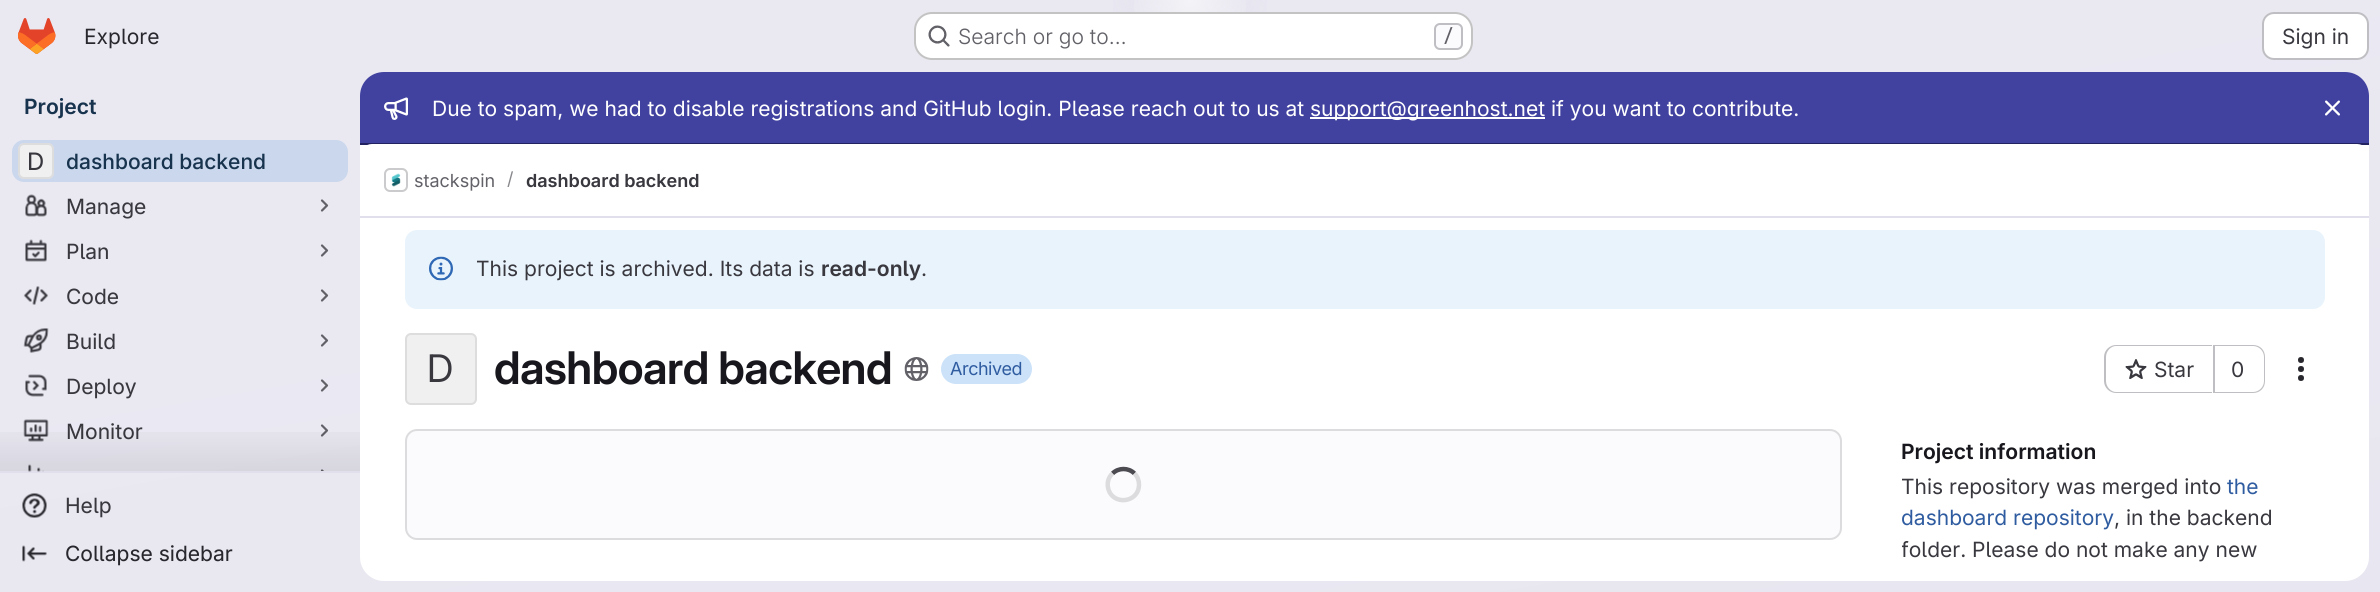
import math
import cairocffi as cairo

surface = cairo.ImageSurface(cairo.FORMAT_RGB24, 2380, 592)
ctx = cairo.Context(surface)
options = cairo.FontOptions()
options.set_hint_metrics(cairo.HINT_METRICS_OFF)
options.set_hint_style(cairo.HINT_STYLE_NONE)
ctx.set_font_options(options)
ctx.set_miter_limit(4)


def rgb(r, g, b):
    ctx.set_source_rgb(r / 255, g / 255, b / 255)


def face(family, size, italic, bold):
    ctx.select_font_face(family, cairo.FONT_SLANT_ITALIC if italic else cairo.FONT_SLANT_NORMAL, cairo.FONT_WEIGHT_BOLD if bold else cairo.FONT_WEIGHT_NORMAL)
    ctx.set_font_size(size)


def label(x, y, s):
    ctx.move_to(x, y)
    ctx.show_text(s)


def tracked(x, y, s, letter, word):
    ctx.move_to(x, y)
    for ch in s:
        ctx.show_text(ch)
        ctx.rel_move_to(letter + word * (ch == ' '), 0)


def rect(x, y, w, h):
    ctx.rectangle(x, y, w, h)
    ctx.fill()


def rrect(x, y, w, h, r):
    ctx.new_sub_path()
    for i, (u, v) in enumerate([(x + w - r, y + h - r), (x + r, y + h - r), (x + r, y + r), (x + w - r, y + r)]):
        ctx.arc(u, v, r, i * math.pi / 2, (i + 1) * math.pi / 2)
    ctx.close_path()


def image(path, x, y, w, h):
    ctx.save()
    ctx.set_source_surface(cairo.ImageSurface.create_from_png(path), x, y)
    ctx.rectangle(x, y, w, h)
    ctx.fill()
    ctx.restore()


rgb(255, 255, 255)
ctx.paint()
gradient = cairo.LinearGradient(1277, 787, 1104, -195)
gradient.add_color_stop_rgba(0, 0.91, 0.902, 0.941, 1)
gradient.add_color_stop_rgba(0.7, 0.918, 0.914, 0.949, 1)
ctx.set_source(gradient)
rect(0, 0, 2380, 592)
gradient = cairo.RadialGradient(0, 0, 0, 0, 0, 1)
gradient.set_matrix(cairo.Matrix(1 / 1190, 0, 0, 1 / 593, -1 * 1190 / 1190, -1 * 0 / 593))
gradient.add_color_stop_rgba(0, 0.894, 0.886, 0.929, 1)
gradient.add_color_stop_rgba(0.09, 0.894, 0.886, 0.929, 0)
ctx.set_source(gradient)
rect(1113, 0, 154, 12)
gradient = cairo.RadialGradient(0, 0, 0, 0, 0, 1)
gradient.set_matrix(cairo.Matrix(1 / 1190, 0, 0, 1 / 593, -1 * 1190 / 1190, -1 * 0 / 593))
gradient.add_color_stop_rgba(0, 0.894, 0.886, 0.925, 1)
gradient.add_color_stop_rgba(0.06, 0.894, 0.886, 0.925, 0)
ctx.set_source(gradient)
rect(1170, 0, 38, 10)
gradient = cairo.RadialGradient(1190, 0, 0, 1190, 0, 1330)
gradient.add_color_stop_rgba(0, 1, 1, 1, 0.6)
gradient.add_color_stop_rgba(0.05, 1, 1, 1, 0)
ctx.set_source(gradient)
rect(1134, 0, 112, 53)
image('image0.png', 18, 18, 38, 36)
face('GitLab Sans', 21, 0, 0)
rgb(40, 39, 45)
label(84, 44, 'Explore')
rgb(255, 255, 255)
rrect(914, 12, 559, 48, 18)
ctx.fill()
rrect(915, 13, 557, 46, 17)
ctx.set_source_rgba(0.02, 0.02, 0.024, 0.24)
ctx.stroke()
image('image1.png', 928, 25, 22, 22)
face('GitLab Sans Light', 21, 0, 0)
rgb(98, 97, 104)
label(958, 44, 'Search or go to…')
rgb(251, 250, 253)
rrect(1435, 24, 27, 25, 5)
ctx.fill_preserve()
rgb(191, 191, 195)
ctx.stroke()
face('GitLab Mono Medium', 18, 0, 0)
rgb(98, 97, 104)
label(1443, 42, '/')
rgb(255, 255, 255)
rrect(2263, 13, 105, 46, 11)
ctx.fill_preserve()
rgb(191, 191, 195)
ctx.stroke()
face('GitLab Sans', 21, 0, 0)
rgb(58, 56, 63)
label(2282, 44, 'Sign in')
face('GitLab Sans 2 SemiBold', 21, 0, 0)
rgb(24, 51, 78)
label(24, 114, 'Project')
rgb(225, 223, 236)
rect(0, 471, 360, 2)
rgb(202, 215, 236)
rrect(12, 140, 336, 42, 12)
ctx.fill()
rgb(255, 255, 255)
rrect(18, 143, 36, 36, 6)
ctx.fill()
ctx.set_source_rgba(0.749, 0.749, 0.765, 0.24)
rrect(18, 143, 36, 36, 6)
ctx.fill()
rrect(19, 144, 34, 34, 5)
ctx.set_source_rgba(0.02, 0.02, 0.024, 0.08)
ctx.stroke()
face('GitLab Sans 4', 24, 0, 0)
rgb(58, 56, 63)
label(27, 170, 'D')
face('GitLab Sans Medium', 21, 0, 0)
rgb(24, 51, 78)
label(66, 169, 'dashboard backend')
image('image2.png', 25, 194, 22, 23)
face('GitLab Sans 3', 21, 0, 0)
rgb(58, 56, 63)
label(66, 214, 'Manage')
ctx.new_path()
ctx.move_to(322, 200.5)
ctx.line_to(327, 205.5)
ctx.line_to(322, 210.5)
rgb(98, 97, 104)
ctx.set_line_width(2.2)
ctx.set_line_cap(cairo.LINE_CAP_ROUND)
ctx.set_line_join(cairo.LINE_JOIN_ROUND)
ctx.stroke()
image('image3.png', 25, 239, 22, 23)
rgb(58, 56, 63)
label(66, 259, 'Plan')
ctx.new_path()
ctx.move_to(322, 245.5)
ctx.line_to(327, 250.5)
ctx.line_to(322, 255.5)
rgb(98, 97, 104)
ctx.stroke()
image('image4.png', 23, 286, 26, 19)
rgb(58, 56, 63)
label(66, 304, 'Code')
ctx.new_path()
ctx.move_to(322, 290.5)
ctx.line_to(327, 295.5)
ctx.line_to(322, 300.5)
rgb(98, 97, 104)
ctx.stroke()
image('image5.png', 23, 328, 26, 25)
rgb(58, 56, 63)
label(66, 349, 'Build')
ctx.new_path()
ctx.move_to(322, 335.5)
ctx.line_to(327, 340.5)
ctx.line_to(322, 345.5)
rgb(98, 97, 104)
ctx.stroke()
image('image6.png', 25, 374, 22, 23)
rgb(58, 56, 63)
label(66, 394, 'Deploy')
ctx.new_path()
ctx.move_to(322, 380.5)
ctx.line_to(327, 385.5)
ctx.line_to(322, 390.5)
rgb(98, 97, 104)
ctx.stroke()
image('image7.png', 23, 419, 26, 23)
rgb(58, 56, 63)
label(66, 439, 'Monitor')
ctx.new_path()
ctx.move_to(322, 425.5)
ctx.line_to(327, 430.5)
ctx.line_to(322, 435.5)
rgb(98, 97, 104)
ctx.stroke()
image('image8.png', 28, 464, 16, 8)
ctx.save()
ctx.rectangle(312, 464, 24, 7)
ctx.clip()
ctx.new_path()
ctx.move_to(322, 470.5)
ctx.line_to(327, 475.5)
ctx.line_to(322, 480.5)
ctx.stroke()
ctx.restore()
gradient = cairo.LinearGradient(180, 417, 180, 471)
gradient.add_color_stop_rgba(0, 0.02, 0.02, 0.024, 0)
gradient.add_color_stop_rgba(1, 0.02, 0.02, 0.024, 0.08)
ctx.set_source(gradient)
rect(0, 432, 360, 39)
image('image9.png', 22, 493, 25, 25)
rgb(58, 56, 63)
label(65, 513, 'Help')
image('image10.png', 22, 545, 25, 17)
rgb(40, 39, 45)
label(65, 561, 'Collapse sidebar')
rgb(255, 255, 255)
rrect(360, 72, 2009, 509, 24)
ctx.fill()
rgb(65, 65, 159)
ctx.new_path()
ctx.move_to(384, 72)
ctx.line_to(2345, 72)
ctx.curve_to(2358.5, 72, 2369, 82.5, 2369, 96)
ctx.line_to(2369, 144)
ctx.line_to(360, 144)
ctx.line_to(360, 96)
ctx.curve_to(360, 82.5, 370.5, 72, 384, 72)
ctx.close_path()
ctx.fill()
rgb(34, 34, 97)
rect(360, 143, 2009, 2)
image('image11.png', 384, 97, 24, 23)
face('GitLab Sans', 21, 0, 0)
rgb(255, 255, 255)
label(432, 116, 'Due to spam, we had to disable registrations and GitHub login. Please reach out to us at')
rect(1310, 117, 235, 2)
label(1310, 116, 'support@greenhost.net if you want to contribute.')
image('image12.png', 2325, 100, 15, 16)
ctx.new_path()
ctx.move_to(372, 144)
ctx.line_to(2357, 144)
ctx.curve_to(2363.5, 144, 2369, 149.5, 2369, 156)
ctx.line_to(2369, 218)
ctx.line_to(360, 218)
ctx.line_to(360, 156)
ctx.curve_to(360, 149.5, 365.5, 144, 372, 144)
ctx.close_path()
ctx.fill()
rgb(225, 223, 236)
rect(360, 216, 2009, 2)
rrect(385, 169, 22, 22, 5)
rgb(220, 220, 222)
ctx.set_line_width(2)
ctx.set_line_cap(cairo.LINE_CAP_BUTT)
ctx.set_line_join(cairo.LINE_JOIN_MITER)
ctx.stroke()
image('image13.png', 391, 173, 10, 14)
rrect(385, 169, 22, 22, 5)
ctx.set_source_rgba(0.02, 0.02, 0.024, 0.08)
ctx.stroke()
face('GitLab Sans', 18, 0, 0)
rgb(98, 97, 104)
label(414, 187, 'stackspin')
rgb(137, 136, 141)
label(507, 185, '/')
face('GitLab Sans 2 SemiBold', 18, 0, 0)
rgb(58, 56, 63)
label(526, 187, 'dashboard backend')
rgb(233, 243, 252)
rrect(405, 230, 1920, 79, 12)
ctx.fill()
image('image14.png', 429, 256, 24, 25)
face('GitLab Sans', 21, 0, 0)
rgb(58, 56, 63)
label(476, 276, 'This project is archived. Its data is')
face('GitLab Sans 2 SemiBold', 21, 0, 0)
label(821, 276, 'read-only')
face('GitLab Sans', 21, 0, 0)
label(921, 276, '.')
rgb(240, 240, 241)
rrect(405, 333, 72, 72, 6)
ctx.fill()
rrect(406, 334, 70, 70, 5)
ctx.set_source_rgba(0.02, 0.02, 0.024, 0.08)
ctx.stroke()
face('GitLab Sans 2', 38, 0, 0)
rgb(58, 56, 63)
label(427, 382, 'D')
face('GitLab Sans SemiBold', 45, 0, 0)
rgb(24, 23, 29)
tracked(494, 384, 'dashboard backend', -0.5, 0)
image('image15.png', 904, 357, 25, 24)
rgb(203, 226, 249)
rrect(941, 354, 91, 30, 15)
ctx.fill()
face('GitLab Sans', 18, 0, 0)
rgb(47, 92, 160)
tracked(950, 375, 'Archived', -0.5, 0)
rgb(191, 191, 195)
ctx.set_fill_rule(cairo.FILL_RULE_EVEN_ODD)
ctx.new_path()
ctx.move_to(2116, 345)
ctx.line_to(2212, 345)
ctx.line_to(2212, 393)
ctx.line_to(2116, 393)
ctx.curve_to(2110, 393, 2104, 388, 2104, 381)
ctx.line_to(2104, 357)
ctx.curve_to(2104, 350, 2110, 345, 2116, 345)
ctx.close_path()
ctx.move_to(2116, 346)
ctx.line_to(2212, 346)
ctx.line_to(2212, 392)
ctx.line_to(2116, 392)
ctx.curve_to(2111, 392, 2106, 387, 2106, 381)
ctx.line_to(2106, 357)
ctx.curve_to(2106, 351, 2111, 346, 2116, 346)
ctx.close_path()
ctx.fill()
image('image16.png', 2125, 359, 22, 20)
face('GitLab Sans', 21, 0, 0)
rgb(58, 56, 63)
label(2154, 377, 'Star')
rgb(191, 191, 195)
ctx.new_path()
ctx.move_to(2214, 345)
ctx.line_to(2253, 345)
ctx.curve_to(2260, 345, 2265, 350, 2265, 357)
ctx.line_to(2265, 381)
ctx.curve_to(2265, 388, 2260, 393, 2253, 393)
ctx.line_to(2214, 393)
ctx.close_path()
ctx.move_to(2214, 346)
ctx.line_to(2253, 346)
ctx.curve_to(2259, 346, 2264, 351, 2264, 357)
ctx.line_to(2264, 381)
ctx.curve_to(2264, 387, 2259, 392, 2253, 392)
ctx.line_to(2214, 392)
ctx.close_path()
ctx.fill()
rect(2213, 345, 2, 48)
rgb(58, 56, 63)
label(2231, 377, '0')
image('image17.png', 2298, 357, 6, 24)
rgb(251, 250, 253)
rrect(406, 430, 1435, 109, 11)
ctx.fill_preserve()
rgb(220, 220, 222)
ctx.stroke()
ctx.new_path()
ctx.move_to(1112.5, 473.5)
ctx.curve_to(1118.5, 467.5, 1128.5, 467.5, 1134.5, 473.5)
rgb(76, 75, 81)
ctx.set_line_width(4.5)
ctx.stroke()
ctx.new_path()
ctx.move_to(1134.5, 473.5)
ctx.curve_to(1137.5, 476.5, 1139, 480.5, 1139, 484.5)
ctx.curve_to(1139, 503.5, 1111.5, 506, 1108, 487.5)
ctx.curve_to(1107, 482.5, 1108.5, 477, 1112.5, 473.5)
rgb(220, 220, 222)
ctx.stroke()
face('GitLab Sans 2 SemiBold', 21, 0, 0)
rgb(24, 23, 29)
label(1901, 459, 'Project information')
face('GitLab Sans', 21, 0, 0)
rgb(58, 56, 63)
label(1901, 494, 'This repository was merged into')
rgb(47, 92, 160)
label(2227, 494, 'the')
label(1901, 525, 'dashboard repository')
rgb(58, 56, 63)
label(2114, 525, ', in the backend')
ctx.save()
ctx.set_fill_rule(cairo.FILL_RULE_WINDING)
ctx.rectangle(1902, 470, 411, 99)
ctx.clip()
label(1901, 557, 'folder. Please do not make any new')
ctx.restore()
surface.write_to_png('render.png')
